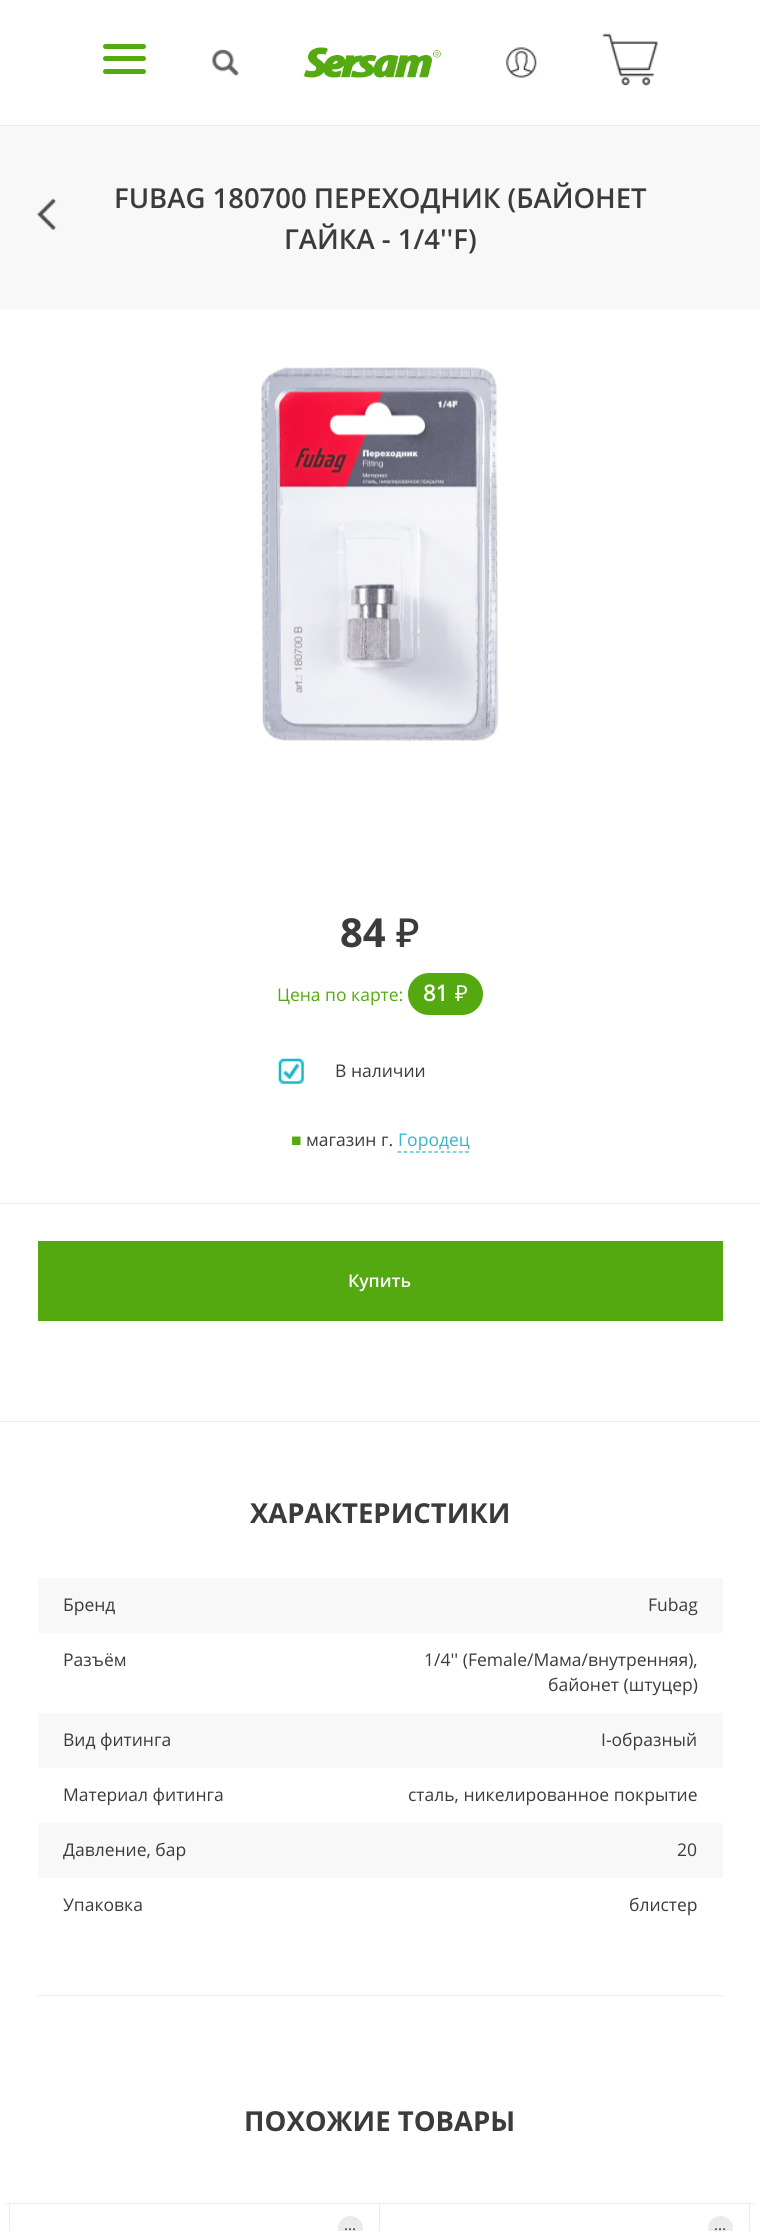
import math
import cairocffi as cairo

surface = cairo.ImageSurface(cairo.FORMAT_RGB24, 760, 2231)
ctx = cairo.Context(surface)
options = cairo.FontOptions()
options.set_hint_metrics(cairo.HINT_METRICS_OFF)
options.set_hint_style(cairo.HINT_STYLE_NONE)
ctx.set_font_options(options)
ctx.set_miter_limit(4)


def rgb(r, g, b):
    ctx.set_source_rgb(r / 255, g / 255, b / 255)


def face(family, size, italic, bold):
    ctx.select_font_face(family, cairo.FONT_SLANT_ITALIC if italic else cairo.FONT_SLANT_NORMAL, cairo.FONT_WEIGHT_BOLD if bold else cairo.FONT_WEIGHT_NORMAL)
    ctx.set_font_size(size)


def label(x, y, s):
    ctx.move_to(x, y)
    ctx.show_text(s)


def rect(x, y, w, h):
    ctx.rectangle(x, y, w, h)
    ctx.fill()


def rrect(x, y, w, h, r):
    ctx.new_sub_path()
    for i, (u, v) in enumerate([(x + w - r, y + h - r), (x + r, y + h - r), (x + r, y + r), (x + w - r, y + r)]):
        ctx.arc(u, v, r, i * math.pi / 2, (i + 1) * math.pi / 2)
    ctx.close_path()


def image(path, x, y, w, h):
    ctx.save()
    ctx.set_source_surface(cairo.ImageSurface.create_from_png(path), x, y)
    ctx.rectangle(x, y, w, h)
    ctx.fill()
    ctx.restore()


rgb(255, 255, 255)
ctx.paint()
rgb(85, 169, 17)
rrect(103, 44, 43, 5, 2.5)
ctx.fill()
rrect(103, 56, 43, 5, 2.5)
ctx.fill()
rrect(103, 69, 43, 5, 2.5)
ctx.fill()
image('image0.png', 212, 49, 27, 27)
image('image1.png', 303, 47, 138, 31)
image('image2.png', 506, 47, 31, 31)
image('image3.png', 602, 33, 56, 53)
rgb(248, 248, 248)
rect(0, 126, 760, 183)
rgb(235, 235, 235)
rect(0, 125, 760, 1)
image('image4.png', 37, 198, 20, 32)
face('Open Sans SemiBold', 27.5, 0, 0)
rgb(59, 59, 59)
label(114, 208, 'FUBAG 180700 ПЕРЕХОДНИК (БАЙОНЕТ')
label(284, 249, 'ГАЙКА - 1/4\'\'F)')
image('image5.png', 261, 367, 238, 374)
rgb(235, 235, 235)
rect(0, 1421, 760, 1)
rect(0, 1203, 760, 1)
face('Open Sans', 40, 0, 1)
rgb(59, 59, 59)
label(340, 947, '84')
face('Noto Sans Medium', 40, 0, 0)
label(396, 947, '₽')
face('Open Sans', 17.5, 0, 0)
rgb(84, 169, 16)
label(277, 1001, 'Цена по карте:')
rrect(408, 973, 75, 42, 21)
ctx.fill()
face('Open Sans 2', 22, 0, 1)
rgb(255, 255, 255)
label(423, 1001, '81')
face('Noto Sans', 22, 0, 0)
label(455, 1001, '₽')
image('image6.png', 278, 1058, 26, 26)
face('Open Sans', 17.5, 0, 0)
rgb(59, 59, 59)
label(335, 1077, 'В наличии')
face('Liberation Serif', 17.5, 0, 0)
rgb(84, 169, 16)
label(291, 1146, '■')
face('Open Sans', 17.5, 0, 0)
rgb(59, 59, 59)
label(306, 1146, 'магазин г.')
rgb(51, 181, 203)
label(398, 1146, 'Городец')
ctx.new_path()
ctx.move_to(397.5, 1152)
ctx.line_to(469, 1152)
ctx.set_line_width(1.2)
ctx.set_dash([3.75, 2.39])
ctx.stroke()
rgb(84, 169, 16)
rect(38, 1241, 685, 80)
face('Open Sans SemiBold', 17.5, 0, 0)
rgb(255, 255, 255)
label(348, 1287, 'Купить')
face('Open Sans', 27.5, 0, 1)
rgb(59, 59, 59)
label(250, 1523, 'ХАРАКТЕРИСТИКИ')
rgb(248, 248, 248)
rect(38, 1578, 685, 55)
face('Open Sans', 17.5, 0, 0)
rgb(59, 59, 59)
label(63, 1611, 'Бренд')
label(648, 1611, 'Fubag')
label(63, 1666, 'Разъём')
label(424, 1666, '1/4\'\' (Female/Мама/внутренняя),')
label(548, 1691, 'байонет (штуцер)')
rgb(248, 248, 248)
rect(38, 1713, 685, 55)
rgb(59, 59, 59)
label(63, 1746, 'Вид фитинга')
label(601, 1746, 'I-образный')
label(63, 1801, 'Материал фитинга')
label(408, 1801, 'сталь, никелированное покрытие')
rgb(248, 248, 248)
rect(38, 1823, 685, 55)
rgb(59, 59, 59)
label(63, 1856, 'Давление, бар')
label(677, 1856, '20')
label(63, 1911, 'Упаковка')
label(629, 1911, 'блистер')
rgb(235, 235, 235)
rect(38, 1995, 685, 1)
face('Open Sans', 27.5, 0, 1)
rgb(59, 59, 59)
label(244, 2131, 'ПОХОЖИЕ ТОВАРЫ')
ctx.save()
ctx.rectangle(6, 2154, 748, 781)
ctx.clip()
ctx.rectangle(-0.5, 2203.5, 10, 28)
rgb(235, 235, 235)
ctx.set_line_width(1)
ctx.set_dash([])
ctx.stroke()
ctx.restore()
ctx.rectangle(9.5, 2203.5, 370, 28)
rgb(235, 235, 235)
ctx.set_line_width(1)
ctx.set_dash([])
ctx.stroke()
ctx.arc(350.5, 2228.5, 12.5, 0, 2 * math.pi)
ctx.fill()
face('Liberation Serif', 12, 0, 1)
rgb(59, 59, 59)
label(344, 2230, '…')
ctx.rectangle(379.5, 2203.5, 370, 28)
rgb(235, 235, 235)
ctx.stroke()
ctx.arc(720.5, 2228.5, 12.5, 0, 2 * math.pi)
ctx.fill()
rgb(59, 59, 59)
label(714, 2230, '…')
ctx.save()
ctx.rectangle(6, 2154, 748, 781)
ctx.clip()
ctx.rectangle(749.5, 2203.5, 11, 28)
rgb(235, 235, 235)
ctx.stroke()
ctx.restore()
surface.write_to_png('render.png')
